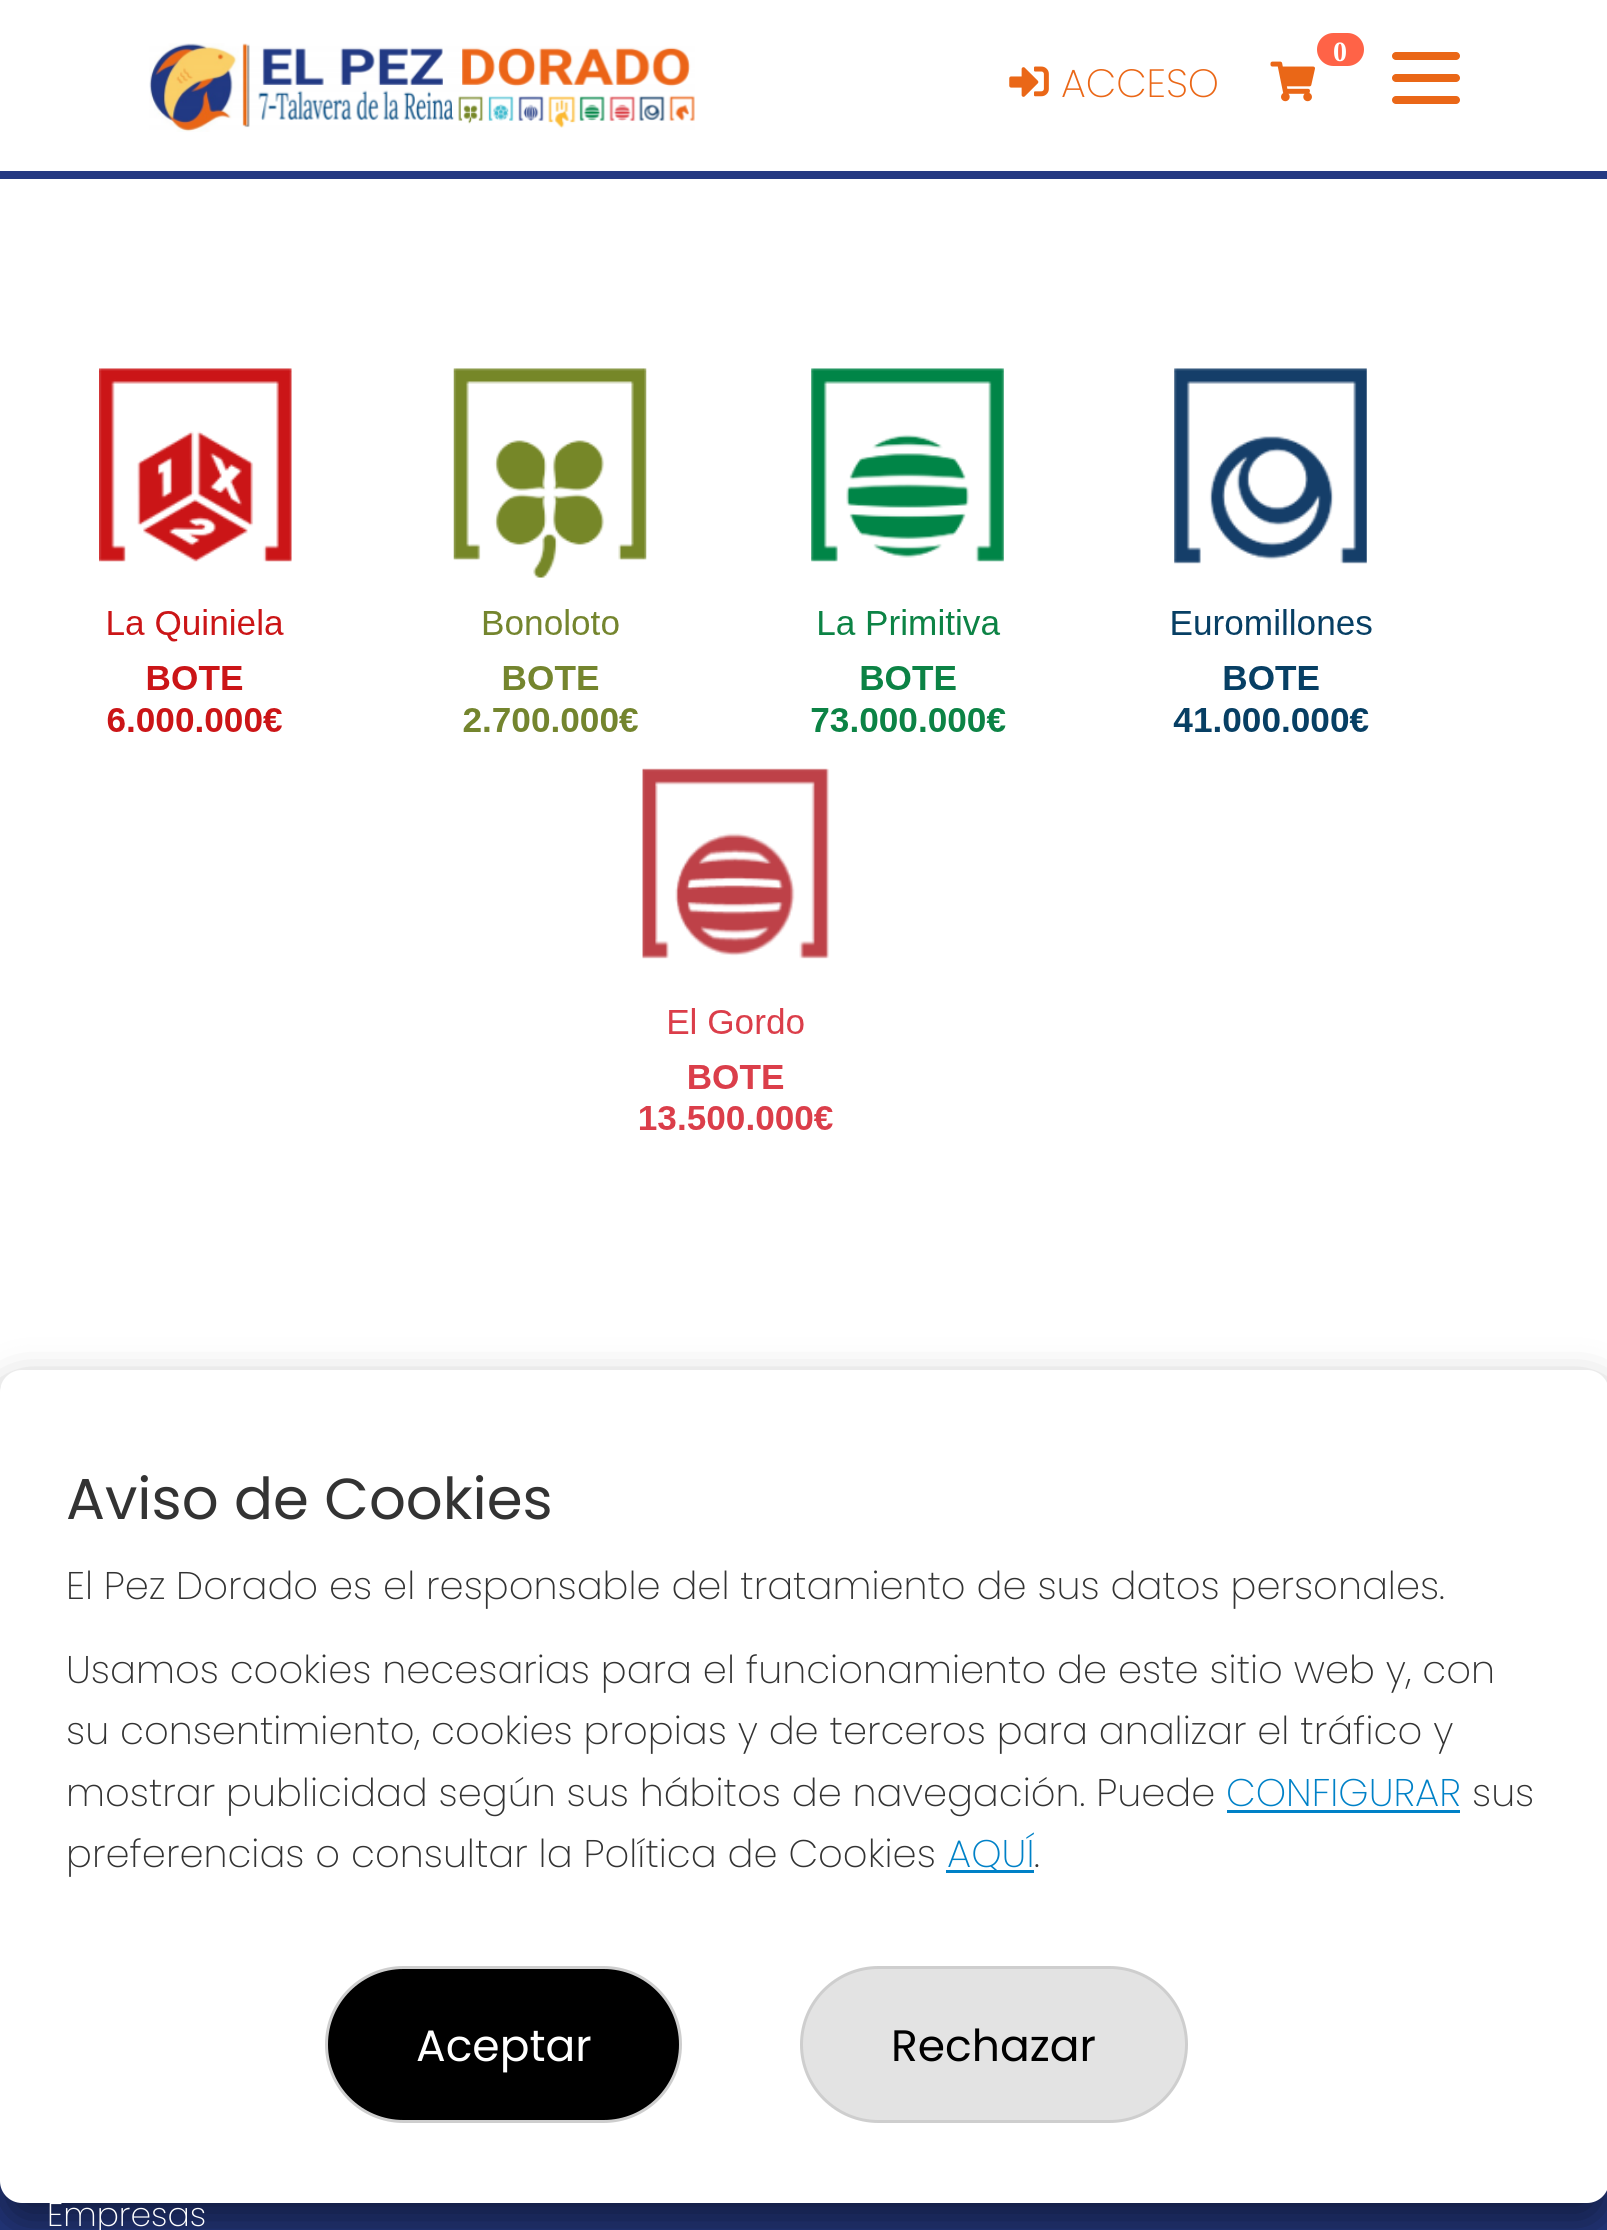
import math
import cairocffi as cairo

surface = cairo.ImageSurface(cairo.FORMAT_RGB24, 1607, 2230)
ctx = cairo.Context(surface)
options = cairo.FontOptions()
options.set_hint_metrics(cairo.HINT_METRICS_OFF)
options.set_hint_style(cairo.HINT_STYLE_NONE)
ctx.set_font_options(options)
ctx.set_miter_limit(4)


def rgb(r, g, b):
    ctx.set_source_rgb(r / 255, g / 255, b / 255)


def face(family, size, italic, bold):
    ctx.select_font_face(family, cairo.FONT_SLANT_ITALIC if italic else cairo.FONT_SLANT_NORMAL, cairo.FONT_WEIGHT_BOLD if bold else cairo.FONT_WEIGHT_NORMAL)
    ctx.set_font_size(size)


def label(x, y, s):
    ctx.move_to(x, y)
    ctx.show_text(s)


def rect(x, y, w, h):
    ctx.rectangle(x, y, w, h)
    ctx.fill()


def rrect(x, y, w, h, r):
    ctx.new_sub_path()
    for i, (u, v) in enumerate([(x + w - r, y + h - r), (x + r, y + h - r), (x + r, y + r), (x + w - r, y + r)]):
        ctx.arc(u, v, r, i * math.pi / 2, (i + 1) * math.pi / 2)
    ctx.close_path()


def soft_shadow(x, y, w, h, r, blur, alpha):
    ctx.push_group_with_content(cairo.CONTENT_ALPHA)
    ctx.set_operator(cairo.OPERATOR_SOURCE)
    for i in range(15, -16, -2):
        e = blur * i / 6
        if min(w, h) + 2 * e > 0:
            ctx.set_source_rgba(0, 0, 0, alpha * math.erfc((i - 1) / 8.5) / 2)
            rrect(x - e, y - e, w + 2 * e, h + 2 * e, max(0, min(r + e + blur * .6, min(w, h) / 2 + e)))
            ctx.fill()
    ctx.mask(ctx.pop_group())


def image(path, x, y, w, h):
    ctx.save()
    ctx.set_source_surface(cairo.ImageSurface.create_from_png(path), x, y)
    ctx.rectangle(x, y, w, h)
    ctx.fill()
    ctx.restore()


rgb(255, 255, 255)
ctx.paint()
rgb(37, 57, 130)
rect(0, 171, 1607, 8)
image('image0.png', 149, 43, 546, 89)
image('image1.png', 1009, 66, 40, 31)
face('Poppins ExtraLight', 39.5, 0, 0)
rgb(234, 103, 23)
label(1061, 97, 'ACCESO')
rgb(255, 99, 71)
rrect(1317, 33, 47, 33, 16.5)
ctx.fill()
face('Liberation Serif', 28, 0, 1)
rgb(255, 255, 255)
label(1333, 61, '0')
image('image2.png', 1270, 61, 45, 41)
rgb(234, 103, 23)
rrect(1392, 52, 68, 8, 4)
ctx.fill()
rrect(1392, 74, 68, 8, 4)
ctx.fill()
rrect(1392, 96, 68, 8, 4)
ctx.fill()
image('image3.png', 99, 368, 1273, 762)
rgb(37, 57, 130)
rect(0, 2181, 1607, 49)
rgb(0, 0, 0)
soft_shadow(0, 1392, 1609, 833, 22, 22, 0.5)
rgb(255, 255, 255)
rrect(0, 1370, 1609, 833, 22)
ctx.fill()
face('Poppins', 57.75, 0, 0)
rgb(51, 51, 51)
label(66, 1519, 'Aviso de Cookies')
face('Poppins ExtraLight', 38.5, 0, 0)
label(66, 1599, 'El Pez Dorado es el responsable del tratamiento de sus datos personales.')
label(66, 1683, 'Usamos cookies necesarias para el funcionamiento de este sitio web y, con')
label(66, 1744, 'su consentimiento, cookies propias y de terceros para analizar el tráfico y')
label(66, 1806, 'mostrar publicidad según sus hábitos de navegación. Puede')
rgb(0, 129, 199)
label(1226, 1806, 'CONFIGURAR')
rect(1227, 1810, 233, 3)
rgb(51, 51, 51)
label(1472, 1806, 'sus')
label(66, 1867, 'preferencias o consultar la Política de Cookies')
rgb(0, 129, 199)
rect(946, 1870, 88, 3)
label(947, 1867, 'AQUÍ')
rgb(51, 51, 51)
label(1034, 1867, '.')
rgb(0, 0, 0)
rrect(326.5, 1967.5, 354, 154, 77)
ctx.fill_preserve()
rgb(206, 206, 206)
ctx.set_line_width(3)
ctx.stroke()
face('Poppins', 44, 0, 0)
rgb(255, 255, 255)
label(416, 2061, 'Aceptar')
rgb(227, 227, 227)
rrect(801.5, 1967.5, 385, 154, 77)
ctx.fill_preserve()
rgb(206, 206, 206)
ctx.stroke()
rgb(0, 0, 0)
label(891, 2061, 'Rechazar')
face('Poppins ExtraLight', 33, 0, 0)
rgb(255, 255, 255)
label(47, 2226, 'Empresas')
surface.write_to_png('render.png')
